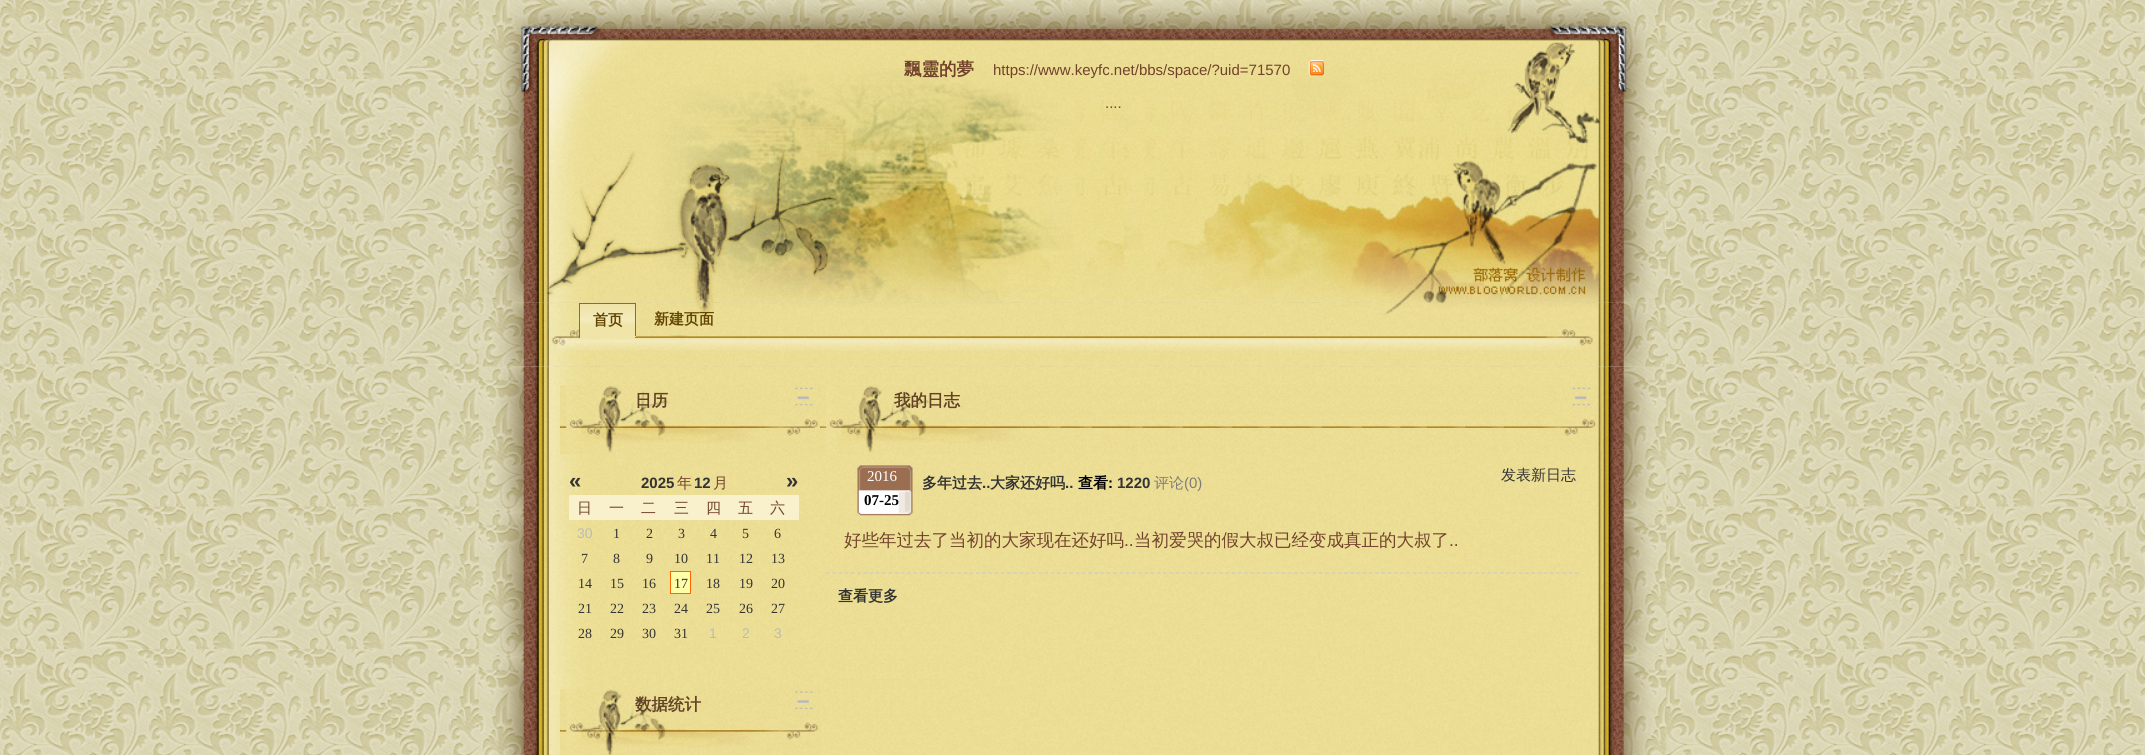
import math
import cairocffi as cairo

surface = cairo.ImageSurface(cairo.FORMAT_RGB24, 2145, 755)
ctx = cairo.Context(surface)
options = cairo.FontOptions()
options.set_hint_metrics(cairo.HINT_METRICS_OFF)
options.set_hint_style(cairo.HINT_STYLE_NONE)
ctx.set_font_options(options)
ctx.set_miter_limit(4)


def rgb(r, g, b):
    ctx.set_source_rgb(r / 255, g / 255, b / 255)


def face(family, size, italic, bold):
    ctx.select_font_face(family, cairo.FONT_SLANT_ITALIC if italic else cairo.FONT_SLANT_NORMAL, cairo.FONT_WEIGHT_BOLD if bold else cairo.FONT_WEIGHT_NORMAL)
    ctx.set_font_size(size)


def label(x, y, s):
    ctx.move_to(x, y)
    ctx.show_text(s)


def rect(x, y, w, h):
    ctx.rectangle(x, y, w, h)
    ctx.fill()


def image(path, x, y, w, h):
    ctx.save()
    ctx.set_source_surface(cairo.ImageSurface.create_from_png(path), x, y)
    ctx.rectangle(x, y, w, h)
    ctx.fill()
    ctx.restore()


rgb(255, 255, 255)
ctx.paint()
image('image0.png', 0, 0, 2145, 755)
image('image1.png', 478, 0, 1189, 303)
face('WenQuanYi Zen Hei', 17.5, 0, 1)
rgb(114, 66, 43)
label(904, 75, '飄靈的夢')
face('Liberation Sans', 15, 0, 0)
label(993, 75, 'https://www.keyfc.net/bbs/space/?uid=71570')
image('image2.png', 1308, 60, 16, 16)
label(1105, 108, '....')
image('image3.png', 478, 302, 1189, 65)
rgb(240, 228, 169)
rect(580, 326, 55, 12)
image('image4.png', 578, 304, 59, 22)
rgb(157, 108, 6)
rect(579, 303, 57, 1)
rect(635, 303, 1, 35)
rgb(240, 228, 168)
rect(579, 336, 57, 1)
rgb(157, 108, 6)
rect(579, 303, 1, 35)
face('WenQuanYi Zen Hei', 15, 0, 1)
rgb(99, 68, 0)
label(593, 325, '首页')
label(654, 324, '新建页面')
image('image5.png', 478, 366, 1189, 389)
image('image6.png', 560, 385, 260, 69)
image('image7.png', 566, 385, 196, 68)
face('WenQuanYi Zen Hei', 16.5, 0, 1)
rgb(98, 67, 38)
label(635, 406, '日历')
image('image8.png', 795, 387, 18, 19)
face('Liberation Sans', 22, 0, 1)
rgb(51, 51, 51)
label(569, 488, '«')
face('Liberation Sans', 15, 0, 1)
label(641, 488, '2025')
face('WenQuanYi Zen Hei Medium', 15, 0, 0)
rgb(114, 66, 43)
label(677, 488, '年')
face('Liberation Sans', 15, 0, 1)
rgb(51, 51, 51)
label(694, 488, '12')
face('WenQuanYi Zen Hei Medium', 15, 0, 0)
rgb(114, 66, 43)
label(713, 488, '月')
face('Liberation Sans', 22, 0, 1)
rgb(51, 51, 51)
label(786, 488, '»')
rgb(248, 241, 203)
rect(569, 495, 230, 25)
face('WenQuanYi Zen Hei Medium', 15, 0, 0)
rgb(114, 66, 43)
label(577, 513, '日')
label(609, 513, '一')
label(641, 513, '二')
label(674, 513, '三')
label(706, 513, '四')
label(738, 513, '五')
label(770, 513, '六')
face('Liberation Sans', 14, 0, 0)
rgb(187, 187, 187)
label(577, 538, '30')
face('Liberation Serif', 14, 0, 0)
rgb(51, 51, 51)
label(613, 538, '1')
label(646, 538, '2')
label(678, 538, '3')
label(710, 538, '4')
label(742, 538, '5')
label(774, 538, '6')
label(581, 563, '7')
label(613, 563, '8')
label(646, 563, '9')
label(674, 563, '10')
label(706, 563, '11')
label(739, 563, '12')
label(771, 563, '13')
label(578, 588, '14')
label(610, 588, '15')
label(642, 588, '16')
rgb(255, 255, 170)
ctx.rectangle(670.5, 571.5, 20, 22)
ctx.fill_preserve()
rgb(255, 102, 0)
ctx.set_line_width(1)
ctx.stroke()
rgb(51, 51, 51)
label(674, 588, '17')
label(706, 588, '18')
label(739, 588, '19')
label(771, 588, '20')
label(578, 613, '21')
label(610, 613, '22')
label(642, 613, '23')
label(674, 613, '24')
label(706, 613, '25')
label(739, 613, '26')
label(771, 613, '27')
label(578, 638, '28')
label(610, 638, '29')
label(642, 638, '30')
label(674, 638, '31')
face('Liberation Sans', 14, 0, 0)
rgb(187, 187, 187)
label(709, 638, '1')
label(742, 638, '2')
label(774, 638, '3')
image('image9.png', 560, 689, 260, 66)
image('image10.png', 566, 689, 196, 66)
face('WenQuanYi Zen Hei', 16.5, 0, 1)
rgb(98, 67, 38)
label(635, 710, '数据统计')
image('image11.png', 795, 691, 18, 18)
image('image12.png', 820, 385, 778, 69)
image('image13.png', 826, 385, 195, 68)
label(894, 406, '我的日志')
image('image14.png', 1572, 387, 19, 19)
image('image15.png', 857, 465, 56, 51)
face('Liberation Serif', 15, 0, 0)
rgb(255, 255, 255)
label(867, 481, '2016')
face('Liberation Serif', 15, 0, 1)
rgb(0, 0, 0)
label(864, 505, '07-25')
face('WenQuanYi Zen Hei', 15, 0, 1)
rgb(51, 51, 51)
label(922, 488, '多年过去')
face('Liberation Sans', 15, 0, 1)
label(982, 488, '..')
face('WenQuanYi Zen Hei', 15, 0, 1)
label(990, 488, '大家还好吗')
face('Liberation Sans', 15, 0, 1)
label(1065, 488, '..')
face('WenQuanYi Zen Hei', 15, 0, 1)
rgb(0, 0, 0)
label(1078, 488, '查看')
face('Liberation Sans', 15, 0, 1)
label(1108, 488, ':')
rgb(51, 51, 51)
label(1117, 488, '1220')
face('WenQuanYi Zen Hei Medium', 15, 0, 0)
rgb(129, 124, 119)
label(1154, 488, '评论')
face('Liberation Sans', 15, 0, 0)
label(1184, 488, '(0)')
face('WenQuanYi Zen Hei Medium', 17.5, 0, 0)
rgb(114, 66, 43)
label(844, 546, '好些年过去了当初的大家现在还好吗')
face('Liberation Sans', 17.5, 0, 0)
label(1124, 546, '..')
face('WenQuanYi Zen Hei Medium', 17.5, 0, 0)
label(1134, 546, '当初爱哭的假大叔已经变成真正的大叔了')
face('Liberation Sans', 17.5, 0, 0)
label(1449, 546, '..')
face('WenQuanYi Zen Hei Medium', 15, 0, 0)
rgb(51, 51, 51)
label(1501, 480, '发表新日志')
ctx.new_path()
ctx.move_to(826, 573)
ctx.line_to(1579, 573)
rgb(204, 204, 204)
ctx.set_line_width(1.2)
ctx.set_dash([3.75, 2.49])
ctx.stroke()
face('WenQuanYi Zen Hei', 15, 0, 1)
rgb(51, 51, 51)
label(838, 601, '查看更多')
surface.write_to_png('render.png')
